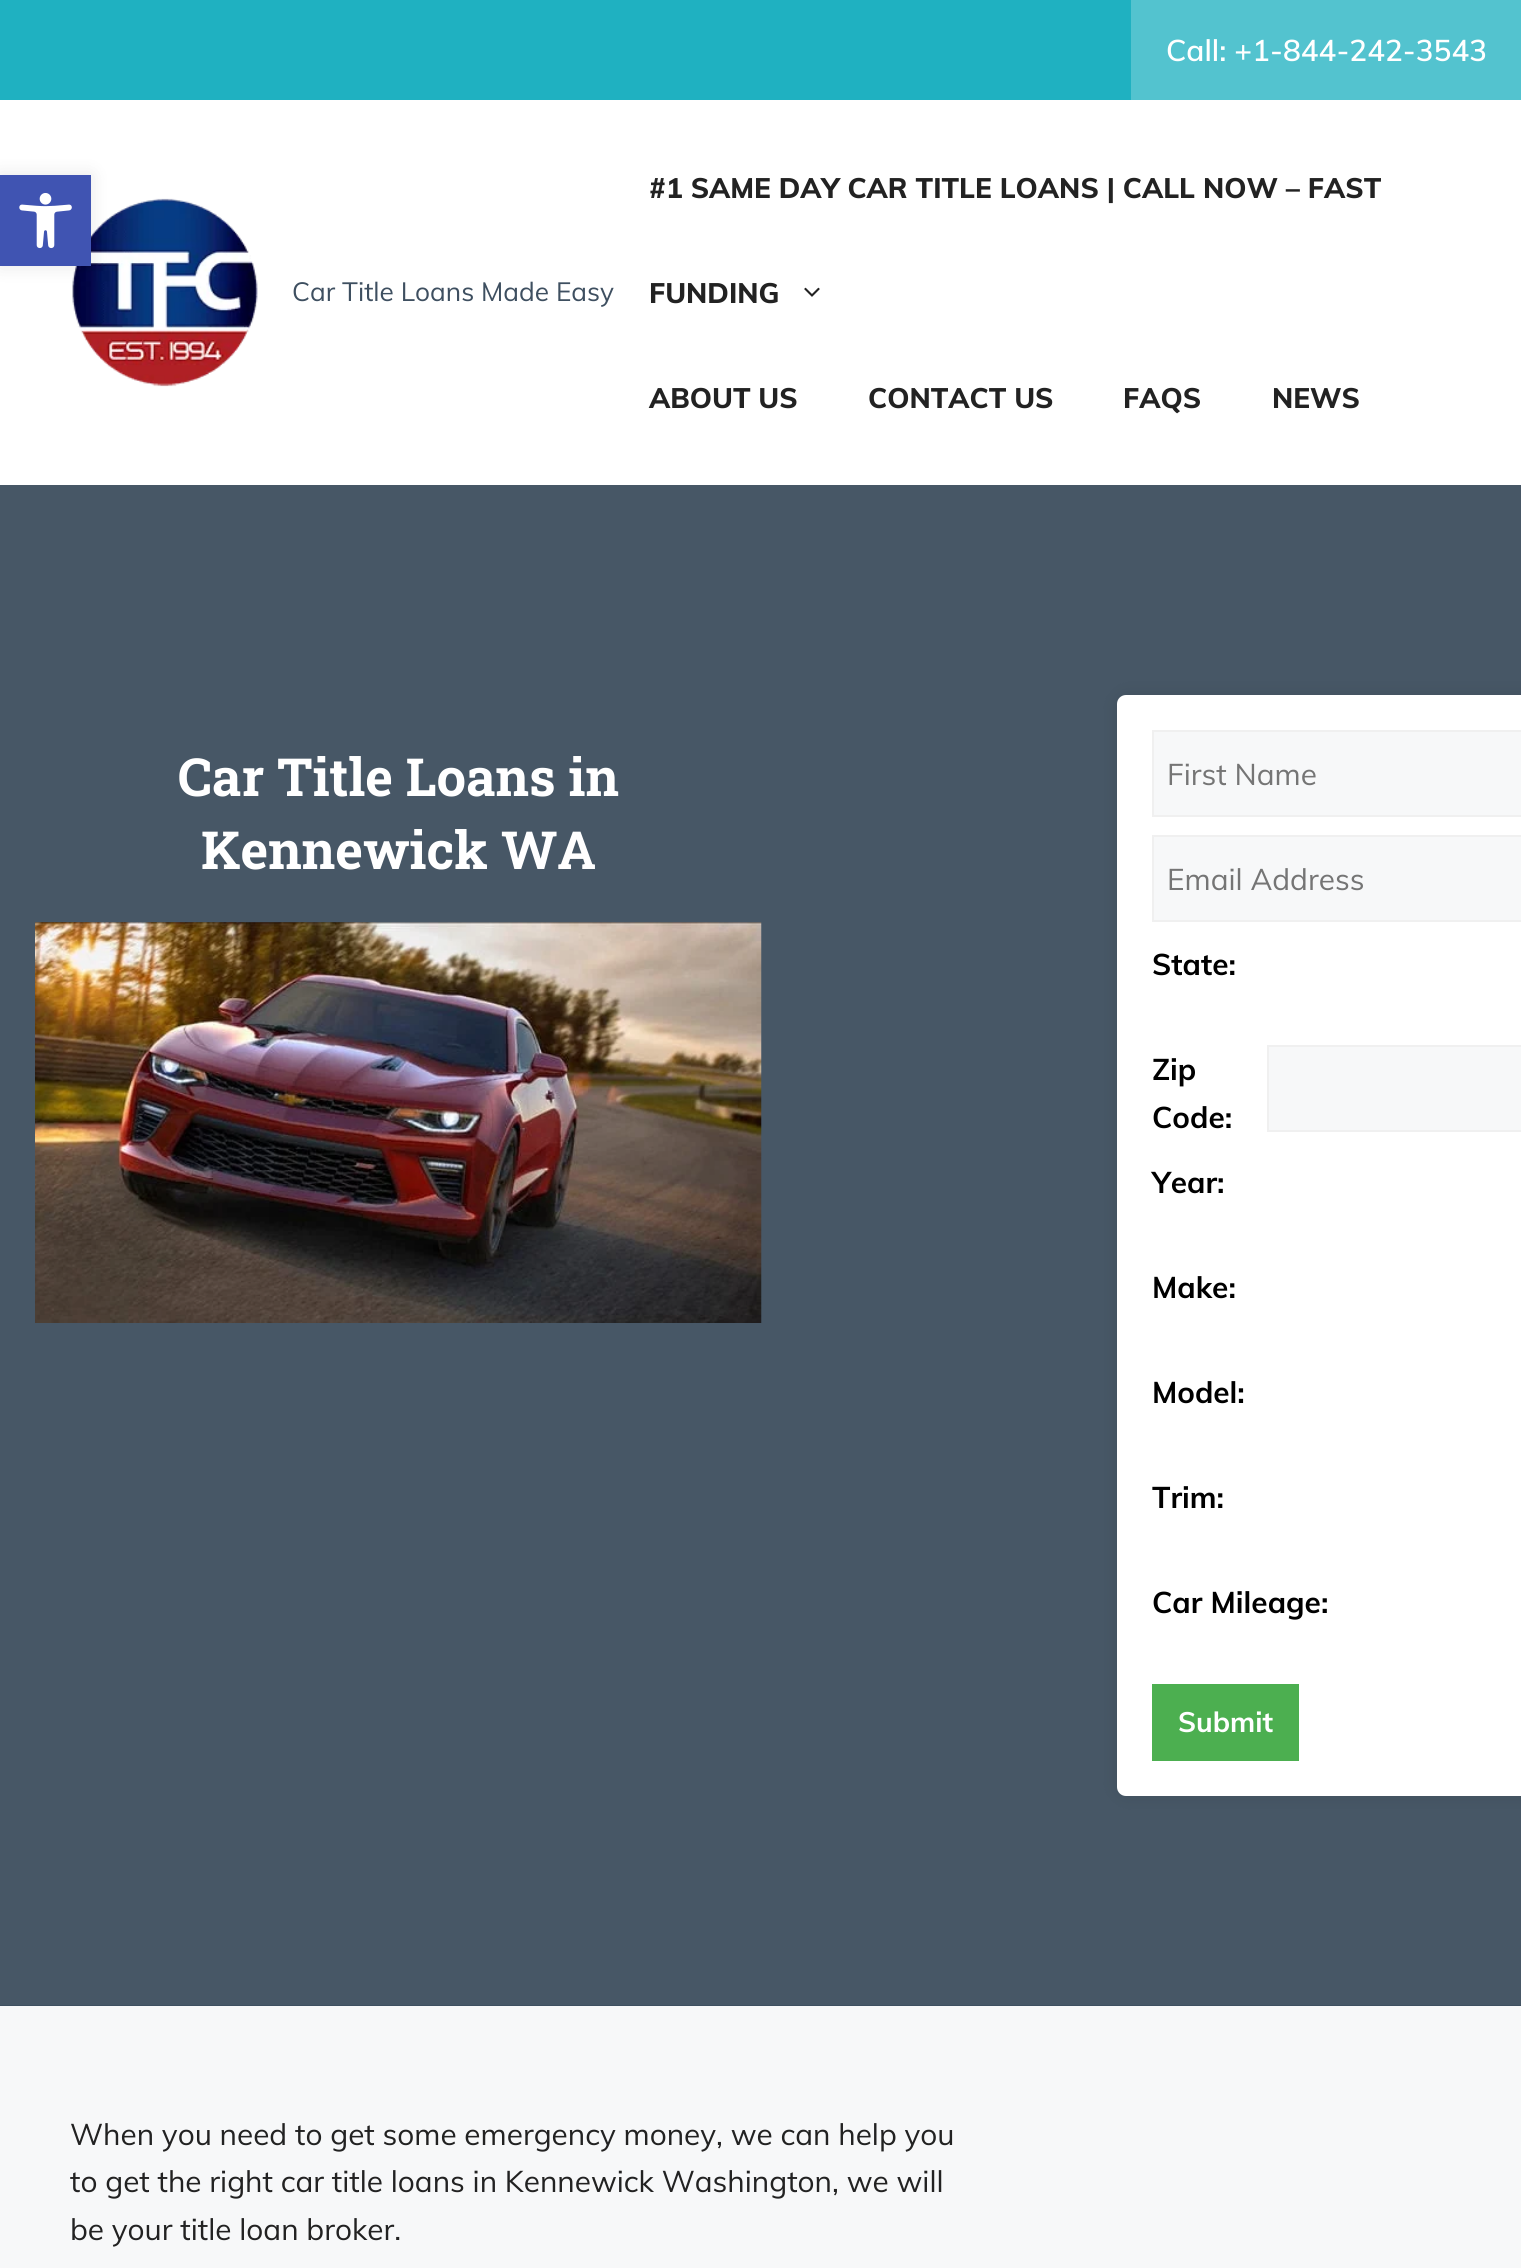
import math
import cairocffi as cairo

surface = cairo.ImageSurface(cairo.FORMAT_RGB24, 1521, 2268)
ctx = cairo.Context(surface)
options = cairo.FontOptions()
options.set_hint_metrics(cairo.HINT_METRICS_OFF)
options.set_hint_style(cairo.HINT_STYLE_NONE)
ctx.set_font_options(options)
ctx.set_miter_limit(4)


def rgb(r, g, b):
    ctx.set_source_rgb(r / 255, g / 255, b / 255)


def face(family, size, italic, bold):
    ctx.select_font_face(family, cairo.FONT_SLANT_ITALIC if italic else cairo.FONT_SLANT_NORMAL, cairo.FONT_WEIGHT_BOLD if bold else cairo.FONT_WEIGHT_NORMAL)
    ctx.set_font_size(size)


def label(x, y, s):
    ctx.move_to(x, y)
    ctx.show_text(s)


def rect(x, y, w, h):
    ctx.rectangle(x, y, w, h)
    ctx.fill()


def rrect(x, y, w, h, r):
    ctx.new_sub_path()
    for i, (u, v) in enumerate([(x + w - r, y + h - r), (x + r, y + h - r), (x + r, y + r), (x + w - r, y + r)]):
        ctx.arc(u, v, r, i * math.pi / 2, (i + 1) * math.pi / 2)
    ctx.close_path()


def soft_shadow(x, y, w, h, r, blur, alpha):
    ctx.push_group_with_content(cairo.CONTENT_ALPHA)
    ctx.set_operator(cairo.OPERATOR_SOURCE)
    for i in range(15, -16, -2):
        e = blur * i / 6
        if min(w, h) + 2 * e > 0:
            ctx.set_source_rgba(0, 0, 0, alpha * math.erfc((i - 1) / 8.5) / 2)
            rrect(x - e, y - e, w + 2 * e, h + 2 * e, max(0, min(r + e + blur * .6, min(w, h) / 2 + e)))
            ctx.fill()
    ctx.mask(ctx.pop_group())


def image(path, x, y, w, h):
    ctx.save()
    ctx.set_source_surface(cairo.ImageSurface.create_from_png(path), x, y)
    ctx.rectangle(x, y, w, h)
    ctx.fill()
    ctx.restore()


rgb(247, 248, 249)
ctx.paint()
rgb(31, 177, 193)
rect(0, 0, 1131, 100)
rgb(83, 195, 207)
rect(1131, 0, 390, 100)
face('Muli SemiBold', 29.75, 0, 0)
rgb(255, 255, 255)
label(1166, 61, 'Call: +1-844-242-3543')
rect(0, 100, 1521, 385)
image('image1.png', 72, 198, 186, 189)
rgb(0, 0, 0)
soft_shadow(0, 175, 91, 91, 0, 9, 0.1)
rgb(64, 84, 178)
rect(0, 175, 91, 91)
image('image0.png', 19, 193, 53, 56)
face('Muli', 26.25, 0, 0)
rgb(62, 79, 96)
label(292, 301, 'Car Title Loans Made Easy')
face('Muli ExtraBold', 28, 0, 0)
rgb(34, 34, 34)
label(649, 198, '#1 SAME DAY CAR TITLE LOANS | CALL NOW – FAST')
label(649, 303, 'FUNDING')
image('image2.png', 804, 287, 16, 10)
label(649, 408, 'ABOUT US')
label(868, 408, 'CONTACT US')
label(1123, 408, 'FAQS')
label(1272, 408, 'NEWS')
rgb(62, 79, 96)
rect(0, 2005, 1521, 1)
rgb(71, 87, 102)
rect(0, 485, 1521, 1520)
face('Roboto Slab', 52.5, 0, 1)
rgb(255, 255, 255)
label(178, 796, 'Car Title Loans in')
label(201, 869, 'Kennewick WA')
image('image3.png', 35, 922, 727, 401)
rgb(0, 0, 0)
soft_shadow(1117, 695, 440, 1101, 9, 9, 0.1)
rgb(255, 255, 255)
ctx.new_path()
ctx.move_to(1126, 695)
ctx.line_to(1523, 695)
ctx.line_to(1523, 1796)
ctx.line_to(1126, 1796)
ctx.curve_to(1121, 1796, 1117, 1792, 1117, 1787)
ctx.line_to(1117, 704)
ctx.curve_to(1117, 699, 1121, 695, 1126, 695)
ctx.close_path()
ctx.fill()
rgb(247, 248, 249)
ctx.rectangle(1153, 731, 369, 85)
ctx.fill_preserve()
rgb(240, 240, 240)
ctx.stroke()
face('Muli', 29.75, 0, 0)
rgb(117, 117, 117)
label(1167, 785, 'First Name')
rgb(247, 248, 249)
ctx.rectangle(1153, 836, 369, 85)
ctx.fill_preserve()
rgb(240, 240, 240)
ctx.stroke()
rgb(117, 117, 117)
label(1167, 890, 'Email Address')
face('Muli', 29.75, 0, 1)
rgb(0, 0, 0)
label(1152, 975, 'State:')
label(1152, 1080, 'Zip')
label(1152, 1128, 'Code:')
rgb(247, 248, 249)
ctx.rectangle(1268, 1046, 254, 85)
ctx.fill_preserve()
rgb(240, 240, 240)
ctx.stroke()
rgb(0, 0, 0)
label(1152, 1193, 'Year:')
label(1152, 1298, 'Make:')
label(1152, 1403, 'Model:')
label(1152, 1508, 'Trim:')
label(1152, 1613, 'Car Mileage:')
rgb(76, 175, 80)
rect(1152, 1684, 147, 77)
face('Muli', 28, 0, 1)
rgb(255, 255, 255)
label(1178, 1732, 'Submit')
face('Muli', 29.75, 0, 0)
rgb(34, 34, 34)
label(70, 2145, 'When you need to get some emergency money, we can help you')
label(70, 2192, 'to get the right car title loans in Kennewick Washington, we will')
label(70, 2240, 'be your title loan broker.')
surface.write_to_png('render.png')
